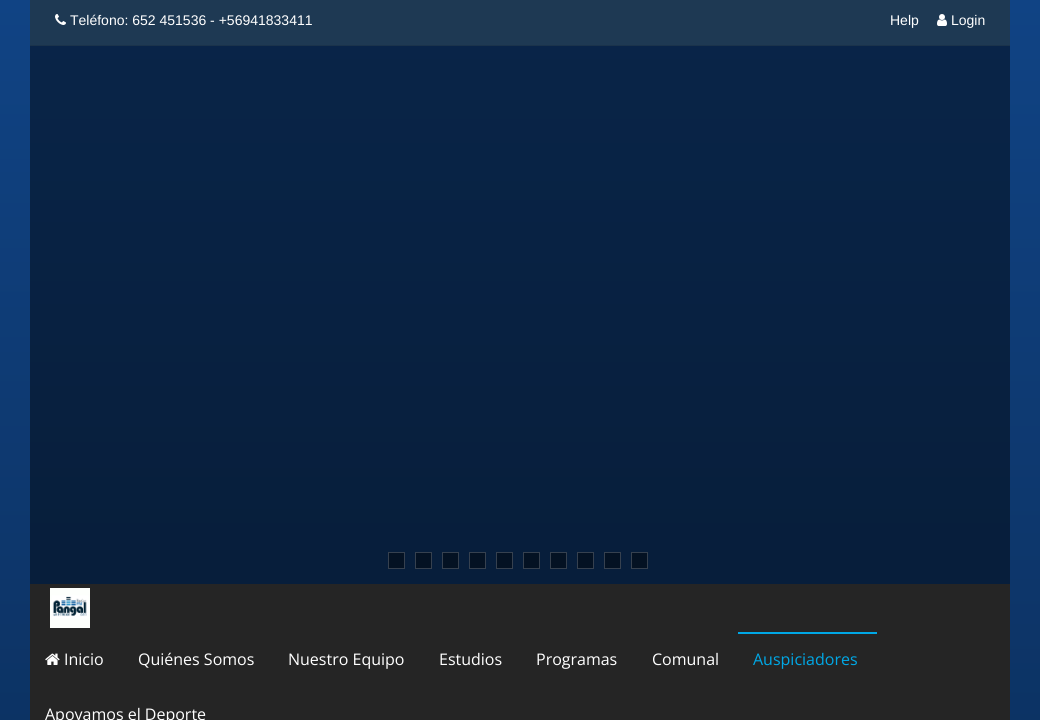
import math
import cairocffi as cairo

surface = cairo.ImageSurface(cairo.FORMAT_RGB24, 1040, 720)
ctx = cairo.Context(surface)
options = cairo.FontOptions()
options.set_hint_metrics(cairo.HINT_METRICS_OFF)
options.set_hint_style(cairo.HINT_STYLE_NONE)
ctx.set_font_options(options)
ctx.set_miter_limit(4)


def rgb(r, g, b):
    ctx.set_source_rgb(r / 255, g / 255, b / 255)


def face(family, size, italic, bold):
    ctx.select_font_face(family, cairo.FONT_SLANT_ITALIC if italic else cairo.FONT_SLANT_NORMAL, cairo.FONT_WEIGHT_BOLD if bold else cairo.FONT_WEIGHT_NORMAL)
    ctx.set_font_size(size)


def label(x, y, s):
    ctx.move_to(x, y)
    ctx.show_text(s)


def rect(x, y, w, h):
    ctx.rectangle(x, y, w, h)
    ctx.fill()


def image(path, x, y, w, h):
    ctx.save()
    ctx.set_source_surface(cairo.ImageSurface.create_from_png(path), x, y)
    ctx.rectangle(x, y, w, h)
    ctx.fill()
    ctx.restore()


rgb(255, 255, 255)
ctx.paint()
gradient = cairo.LinearGradient(520, 0, 520, 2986)
gradient.add_color_stop_rgba(0, 0.063, 0.263, 0.518, 1)
gradient.add_color_stop_rgba(1, 0, 0, 0, 1)
ctx.set_source(gradient)
rect(0, 0, 1040, 720)
gradient = cairo.LinearGradient(520, 0, 520, 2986)
gradient.add_color_stop_rgba(0, 0.035, 0.145, 0.286, 1)
gradient.add_color_stop_rgba(1, 0, 0, 0, 1)
ctx.set_source(gradient)
rect(30, 46, 980, 538)
rgb(30, 57, 83)
rect(30, 0, 980, 45)
rgb(27, 51, 75)
rect(30, 45, 980, 1)
image('image0.png', 55, 14, 11, 11)
face('Liberation Sans', 14, 0, 0)
rgb(255, 255, 255)
label(70, 25, 'Teléfono: 652 451536 - +56941833411')
label(890, 25, 'Help')
image('image1.png', 937, 14, 10, 12)
label(951, 25, 'Login')
rgb(4, 18, 35)
ctx.rectangle(388.5, 552.5, 16, 16)
ctx.fill_preserve()
rgb(54, 65, 79)
ctx.set_line_width(1)
ctx.stroke()
rgb(4, 18, 35)
ctx.rectangle(415.5, 552.5, 16, 16)
ctx.fill_preserve()
rgb(54, 65, 79)
ctx.stroke()
rgb(4, 18, 35)
ctx.rectangle(442.5, 552.5, 16, 16)
ctx.fill_preserve()
rgb(54, 65, 79)
ctx.stroke()
rgb(4, 18, 35)
ctx.rectangle(469.5, 552.5, 16, 16)
ctx.fill_preserve()
rgb(54, 65, 79)
ctx.stroke()
rgb(4, 18, 35)
ctx.rectangle(496.5, 552.5, 16, 16)
ctx.fill_preserve()
rgb(54, 65, 79)
ctx.stroke()
rgb(4, 18, 35)
ctx.rectangle(523.5, 552.5, 16, 16)
ctx.fill_preserve()
rgb(54, 65, 79)
ctx.stroke()
rgb(4, 18, 35)
ctx.rectangle(550.5, 552.5, 16, 16)
ctx.fill_preserve()
rgb(54, 65, 79)
ctx.stroke()
rgb(4, 18, 35)
ctx.rectangle(577.5, 552.5, 16, 16)
ctx.fill_preserve()
rgb(54, 65, 79)
ctx.stroke()
rgb(4, 18, 35)
ctx.rectangle(604.5, 552.5, 16, 16)
ctx.fill_preserve()
rgb(54, 65, 79)
ctx.stroke()
rgb(4, 18, 35)
ctx.rectangle(631.5, 552.5, 16, 16)
ctx.fill_preserve()
rgb(54, 65, 79)
ctx.stroke()
rgb(37, 37, 37)
rect(30, 584, 980, 136)
image('image2.png', 50, 588, 40, 40)
image('image3.png', 45, 653, 15, 12)
face('Open Sans', 16, 0, 0)
rgb(255, 255, 255)
label(64, 665, 'Inicio')
label(138, 665, 'Quiénes Somos')
label(288, 665, 'Nuestro Equipo')
label(439, 665, 'Estudios')
label(536, 665, 'Programas')
label(652, 665, 'Comunal')
rgb(0, 168, 230)
rect(738, 632, 139, 2)
label(753, 665, 'Auspiciadores')
rgb(255, 255, 255)
label(45, 720, 'Apoyamos el Deporte')
surface.write_to_png('render.png')
